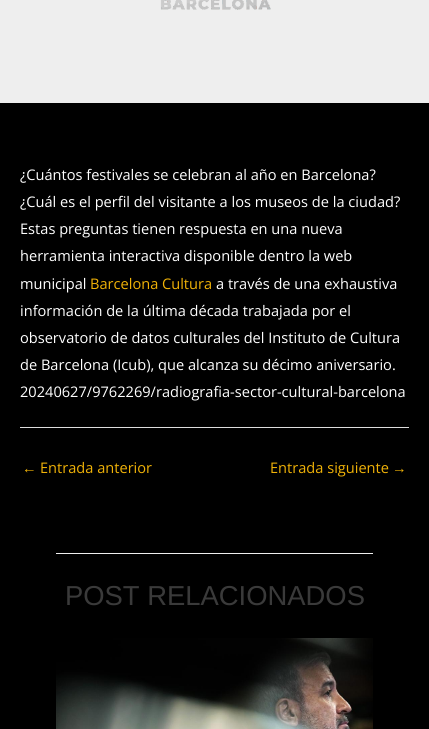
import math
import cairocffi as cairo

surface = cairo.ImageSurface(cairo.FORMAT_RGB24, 429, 729)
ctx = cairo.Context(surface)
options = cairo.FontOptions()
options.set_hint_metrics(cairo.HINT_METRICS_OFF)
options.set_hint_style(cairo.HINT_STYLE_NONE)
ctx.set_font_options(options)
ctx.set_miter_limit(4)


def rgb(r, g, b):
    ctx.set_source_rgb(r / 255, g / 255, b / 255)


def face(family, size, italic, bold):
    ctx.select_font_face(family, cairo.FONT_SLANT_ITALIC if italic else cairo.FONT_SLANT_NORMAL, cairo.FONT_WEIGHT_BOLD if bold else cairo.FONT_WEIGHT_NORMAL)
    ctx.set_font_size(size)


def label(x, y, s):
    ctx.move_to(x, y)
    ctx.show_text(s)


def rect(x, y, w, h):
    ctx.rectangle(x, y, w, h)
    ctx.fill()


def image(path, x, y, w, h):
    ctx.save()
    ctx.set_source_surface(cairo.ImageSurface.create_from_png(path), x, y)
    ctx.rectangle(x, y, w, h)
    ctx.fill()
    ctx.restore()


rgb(0, 0, 0)
ctx.paint()
rgb(238, 238, 238)
rect(0, 0, 429, 103)
image('image0.png', 160, 0, 111, 10)
face('Open Sans', 14.6, 0, 0)
rgb(255, 255, 255)
label(20, 180, '¿Cuántos festivales se celebran al año en Barcelona?')
label(20, 207, '¿Cuál es el perfil del visitante a los museos de la ciudad?')
label(20, 234, 'Estas preguntas tienen respuesta en una nueva')
label(20, 261, 'herramienta interactiva disponible dentro la web')
label(20, 289, 'municipal')
rgb(240, 178, 7)
label(90, 289, 'Barcelona Cultura')
rgb(255, 255, 255)
label(216, 289, 'a través de una exhaustiva')
label(20, 316, 'información de la última década trabajada por el')
label(20, 343, 'observatorio de datos culturales del Instituto de Cultura')
label(20, 370, 'de Barcelona (Icub), que alcanza su décimo aniversario.')
label(20, 397, '20240627/9762269/radiografia-sector-cultural-barcelona')
rgb(221, 221, 221)
rect(20, 427, 389, 1)
face('Liberation Sans', 14.6, 0, 0)
rgb(240, 178, 7)
label(22, 473, '←')
face('Open Sans', 14.6, 0, 0)
label(40, 473, 'Entrada anterior')
label(270, 473, 'Entrada siguiente')
face('Liberation Sans', 14.6, 0, 0)
label(392, 473, '→')
rgb(238, 238, 238)
rect(56, 553, 317, 1)
face('Liberation Sans', 27.4, 0, 0)
rgb(58, 58, 58)
label(65, 605, 'POST RELACIONADOS')
image('image1.png', 56, 638, 317, 91)
surface.write_to_png('render.png')
